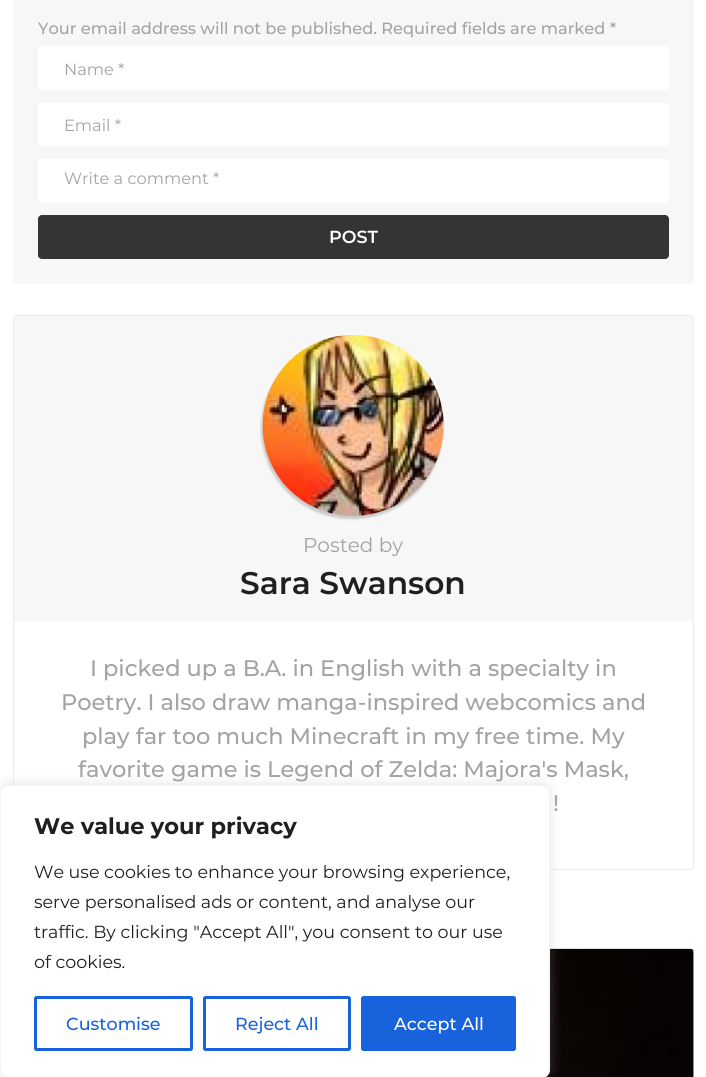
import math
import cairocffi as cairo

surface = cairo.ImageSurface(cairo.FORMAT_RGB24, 706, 1077)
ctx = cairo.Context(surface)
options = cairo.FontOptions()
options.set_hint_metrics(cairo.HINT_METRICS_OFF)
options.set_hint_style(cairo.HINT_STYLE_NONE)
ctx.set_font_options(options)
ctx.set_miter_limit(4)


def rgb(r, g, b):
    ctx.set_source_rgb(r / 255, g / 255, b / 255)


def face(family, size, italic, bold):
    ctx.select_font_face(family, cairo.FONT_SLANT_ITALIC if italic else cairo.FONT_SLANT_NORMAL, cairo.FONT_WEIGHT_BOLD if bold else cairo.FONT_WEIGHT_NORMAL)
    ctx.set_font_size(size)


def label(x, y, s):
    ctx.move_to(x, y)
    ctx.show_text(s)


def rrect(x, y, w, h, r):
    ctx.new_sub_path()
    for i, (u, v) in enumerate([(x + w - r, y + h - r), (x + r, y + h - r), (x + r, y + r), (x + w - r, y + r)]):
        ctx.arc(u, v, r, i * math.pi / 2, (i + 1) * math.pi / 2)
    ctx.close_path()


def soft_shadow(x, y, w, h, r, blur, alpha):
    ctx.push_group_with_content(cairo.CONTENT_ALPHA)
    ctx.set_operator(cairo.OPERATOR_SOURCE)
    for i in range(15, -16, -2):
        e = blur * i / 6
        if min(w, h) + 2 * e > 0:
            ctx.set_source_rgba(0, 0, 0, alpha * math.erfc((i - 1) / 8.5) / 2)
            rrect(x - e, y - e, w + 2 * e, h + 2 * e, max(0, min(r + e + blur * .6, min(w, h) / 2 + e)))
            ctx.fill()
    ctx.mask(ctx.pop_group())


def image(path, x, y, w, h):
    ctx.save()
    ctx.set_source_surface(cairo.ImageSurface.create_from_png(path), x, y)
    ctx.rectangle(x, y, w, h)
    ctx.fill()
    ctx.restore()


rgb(255, 255, 255)
ctx.paint()
rgb(247, 247, 247)
rrect(13, -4, 681, 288, 4)
ctx.fill()
face('Montserrat Medium', 16.25, 0, 0)
rgb(163, 163, 163)
label(38, 34, 'Your email address will not be published. Required fields are marked *')
rgb(255, 255, 255)
rrect(38, 46, 631, 44, 4)
ctx.fill()
face('Montserrat', 16.25, 0, 0)
rgb(163, 163, 163)
label(64, 75, 'Name *')
rgb(255, 255, 255)
rrect(38, 103, 631, 43, 4)
ctx.fill()
rgb(163, 163, 163)
label(64, 131, 'Email *')
rgb(255, 255, 255)
rrect(38, 159, 631, 44, 4)
ctx.fill()
rgb(163, 163, 163)
label(64, 184, 'Write a comment *')
rgb(53, 52, 50)
rrect(38, 215, 631, 44, 4)
ctx.fill()
face('Montserrat SemiBold', 17.5, 0, 0)
rgb(255, 255, 255)
label(329, 243, 'POST')
rrect(13.5, 315.5, 680, 554, 3.5)
rgb(236, 236, 236)
ctx.set_line_width(1)
ctx.stroke()
rgb(247, 247, 247)
ctx.new_path()
ctx.move_to(16.5, 316)
ctx.line_to(690.5, 316)
ctx.curve_to(692, 316, 693, 317, 693, 318.5)
ctx.line_to(693, 621)
ctx.line_to(14, 621)
ctx.line_to(14, 318.5)
ctx.curve_to(14, 317, 15, 316, 16.5, 316)
ctx.close_path()
ctx.fill()
rgb(0, 0, 0)
soft_shadow(261, 338, 182, 181, 90.5, 1, 0.18)
image('image0.png', 262, 334, 182, 182)
face('Montserrat', 20, 0, 0)
rgb(163, 163, 163)
label(303, 552, 'Posted by')
face('Montserrat SemiBold', 31.25, 0, 0)
rgb(31, 31, 31)
label(240, 594, 'Sara Swanson')
face('Montserrat Medium', 22.5, 0, 0)
rgb(163, 163, 163)
label(90, 676, 'I picked up a B.A. in English with a specialty in')
label(61, 710, 'Poetry. I also draw manga-inspired webcomics and')
label(82, 744, 'play far too much Minecraft in my free time. My')
label(78, 777, 'favorite game is Legend of Zelda: Majora\'s Mask,')
label(553, 811, '!')
rgb(247, 247, 247)
rrect(13, 949, 681, 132, 4)
ctx.fill()
image('image1.png', 545, 948, 149, 129)
rgb(172, 171, 171)
soft_shadow(0, 784, 550, 292, 8, 6, 0.3)
rgb(255, 255, 255)
rrect(0.5, 785.5, 549, 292, 7.5)
ctx.fill_preserve()
rgb(244, 244, 244)
ctx.stroke()
face('Montserrat', 22.5, 0, 1)
rgb(31, 31, 31)
label(34, 834, 'We value your privacy')
face('Montserrat', 17.5, 0, 0)
label(34, 878, 'We use cookies to enhance your browsing experience,')
label(34, 908, 'serve personalised ads or content, and analyse our')
label(34, 938, 'traffic. By clicking "Accept All", you consent to our use')
label(34, 968, 'of cookies.')
rrect(35.5, 997.5, 156, 52, 1)
rgb(24, 99, 220)
ctx.set_line_width(3)
ctx.stroke()
face('Montserrat Medium', 17.5, 0, 0)
label(66, 1030, 'Customise')
rrect(204.5, 997.5, 145, 52, 1)
ctx.stroke()
label(235, 1030, 'Reject All')
rrect(362.5, 997.5, 152, 52, 1)
ctx.fill_preserve()
ctx.stroke()
rgb(255, 255, 255)
label(394, 1030, 'Accept All')
surface.write_to_png('render.png')
